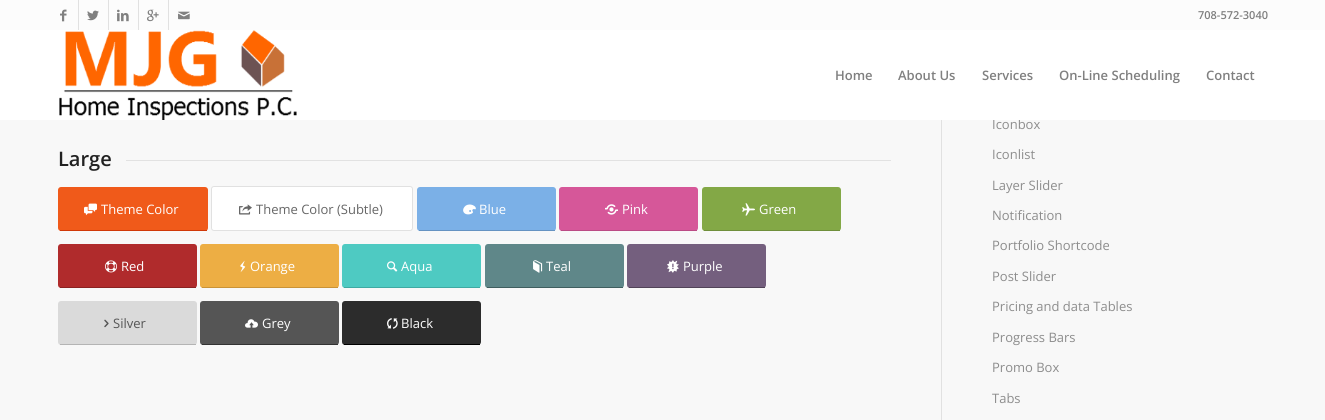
import math
import cairocffi as cairo

surface = cairo.ImageSurface(cairo.FORMAT_RGB24, 1325, 420)
ctx = cairo.Context(surface)
options = cairo.FontOptions()
options.set_hint_metrics(cairo.HINT_METRICS_OFF)
options.set_hint_style(cairo.HINT_STYLE_NONE)
ctx.set_font_options(options)
ctx.set_miter_limit(4)


def rgb(r, g, b):
    ctx.set_source_rgb(r / 255, g / 255, b / 255)


def face(family, size, italic, bold):
    ctx.select_font_face(family, cairo.FONT_SLANT_ITALIC if italic else cairo.FONT_SLANT_NORMAL, cairo.FONT_WEIGHT_BOLD if bold else cairo.FONT_WEIGHT_NORMAL)
    ctx.set_font_size(size)


def label(x, y, s):
    ctx.move_to(x, y)
    ctx.show_text(s)


def rect(x, y, w, h):
    ctx.rectangle(x, y, w, h)
    ctx.fill()


def rrect(x, y, w, h, r):
    ctx.new_sub_path()
    for i, (u, v) in enumerate([(x + w - r, y + h - r), (x + r, y + h - r), (x + r, y + r), (x + w - r, y + r)]):
        ctx.arc(u, v, r, i * math.pi / 2, (i + 1) * math.pi / 2)
    ctx.close_path()


def image(path, x, y, w, h):
    ctx.save()
    ctx.set_source_surface(cairo.ImageSurface.create_from_png(path), x, y)
    ctx.rectangle(x, y, w, h)
    ctx.fill()
    ctx.restore()


rgb(248, 248, 248)
ctx.paint()
rgb(252, 252, 252)
rect(0, 0, 1325, 30)
rgb(225, 225, 225)
rect(78, 0, 1, 30)
image('image0.png', 60, 9, 7, 13)
rect(108, 0, 1, 30)
image('image1.png', 87, 10, 12, 11)
rect(138, 0, 1, 30)
image('image2.png', 117, 9, 12, 13)
rect(168, 0, 1, 30)
image('image3.png', 147, 9, 12, 13)
image('image4.png', 178, 11, 12, 9)
face('Open Sans SemiBold', 11, 0, 0)
rgb(128, 128, 128)
label(1198, 19, '708-572-3040')
face('Open Sans', 13, 0, 0)
rgb(141, 141, 141)
label(992, 129, 'Iconbox')
rgb(255, 255, 255)
rect(0, 30, 1325, 90)
image('image5.png', 59, 30, 238, 90)
face('Open Sans SemiBold', 13, 0, 0)
rgb(128, 128, 128)
label(835, 80, 'Home')
label(898, 80, 'About Us')
label(982, 80, 'Services')
label(1059, 80, 'On-Line Scheduling')
label(1206, 80, 'Contact')
face('Open Sans SemiBold', 20, 0, 0)
rgb(34, 34, 34)
label(58, 166, 'Large')
rgb(226, 226, 226)
rect(126, 160, 765, 1)
rgb(240, 90, 26)
rrect(58, 187, 150, 44, 3)
ctx.fill()
rgb(208, 56, 8)
rect(60, 230, 147, 1)
image('image6.png', 84, 203, 13, 13)
face('Open Sans', 13, 0, 0)
rgb(255, 255, 255)
label(101, 214, 'Theme Color')
rrect(211.5, 186.5, 201, 44, 2.5)
ctx.fill_preserve()
rgb(225, 225, 225)
ctx.set_line_width(1)
ctx.stroke()
image('image7.png', 239, 204, 13, 11)
rgb(102, 102, 102)
label(256, 214, 'Theme Color (Subtle)')
rgb(123, 176, 231)
rrect(417, 187, 139, 44, 3)
ctx.fill()
rgb(102, 147, 194)
rect(419, 230, 136, 1)
image('image8.png', 463, 204, 13, 11)
rgb(255, 255, 255)
label(479, 214, 'Blue')
rgb(214, 87, 153)
rrect(559, 187, 139, 44, 3)
ctx.fill()
rgb(187, 75, 133)
rect(561, 230, 136, 1)
image('image9.png', 605, 204, 13, 11)
rgb(255, 255, 255)
label(622, 214, 'Pink')
rgb(131, 168, 70)
rrect(702, 187, 139, 44, 3)
ctx.fill()
rgb(111, 143, 59)
rect(704, 230, 136, 1)
image('image10.png', 742, 203, 13, 13)
rgb(255, 255, 255)
label(759, 214, 'Green')
rgb(176, 43, 44)
rrect(58, 244, 139, 44, 3)
ctx.fill()
rgb(139, 33, 33)
rect(60, 287, 136, 1)
image('image11.png', 105, 260, 12, 13)
rgb(255, 255, 255)
label(121, 271, 'Red')
rgb(237, 174, 68)
rrect(200, 244, 139, 44, 3)
ctx.fill()
rgb(202, 147, 54)
rect(202, 287, 136, 1)
image('image12.png', 240, 260, 6, 13)
rgb(255, 255, 255)
label(250, 271, 'Orange')
rgb(78, 202, 194)
rrect(342, 244, 139, 44, 3)
ctx.fill()
rgb(62, 170, 163)
rect(344, 287, 136, 1)
image('image13.png', 387, 261, 11, 11)
rgb(255, 255, 255)
label(401, 271, 'Aqua')
rgb(95, 135, 137)
rrect(485, 244, 139, 44, 3)
ctx.fill()
rgb(63, 94, 95)
rect(487, 287, 136, 1)
image('image14.png', 533, 260, 10, 13)
rgb(255, 255, 255)
label(546, 271, 'Teal')
rgb(116, 95, 126)
rrect(627, 244, 139, 44, 3)
ctx.fill()
rgb(81, 67, 88)
rect(629, 287, 136, 1)
image('image15.png', 667, 260, 12, 13)
rgb(255, 255, 255)
label(683, 271, 'Purple')
rgb(218, 218, 218)
rrect(58, 301, 139, 44, 3)
ctx.fill()
rgb(180, 180, 180)
rect(60, 344, 136, 1)
image('image16.png', 104, 319, 5, 9)
rgb(85, 85, 85)
label(113, 328, 'Silver')
rrect(200, 301, 139, 44, 3)
ctx.fill()
rgb(51, 51, 51)
rect(202, 344, 136, 1)
image('image17.png', 245, 319, 13, 9)
rgb(255, 255, 255)
label(262, 328, 'Grey')
rgb(44, 44, 44)
rrect(342, 301, 139, 44, 3)
ctx.fill()
rgb(0, 0, 0)
rect(344, 344, 136, 1)
image('image18.png', 387, 318, 11, 11)
rgb(255, 255, 255)
label(401, 328, 'Black')
rgb(225, 225, 225)
rect(941, 120, 1, 300)
rgb(141, 141, 141)
label(992, 159, 'Iconlist')
label(992, 190, 'Layer Slider')
label(992, 220, 'Notification')
label(992, 250, 'Portfolio Shortcode')
label(992, 281, 'Post Slider')
label(992, 311, 'Pricing and data Tables')
label(992, 342, 'Progress Bars')
label(992, 372, 'Promo Box')
label(992, 403, 'Tabs')
surface.write_to_png('render.png')
